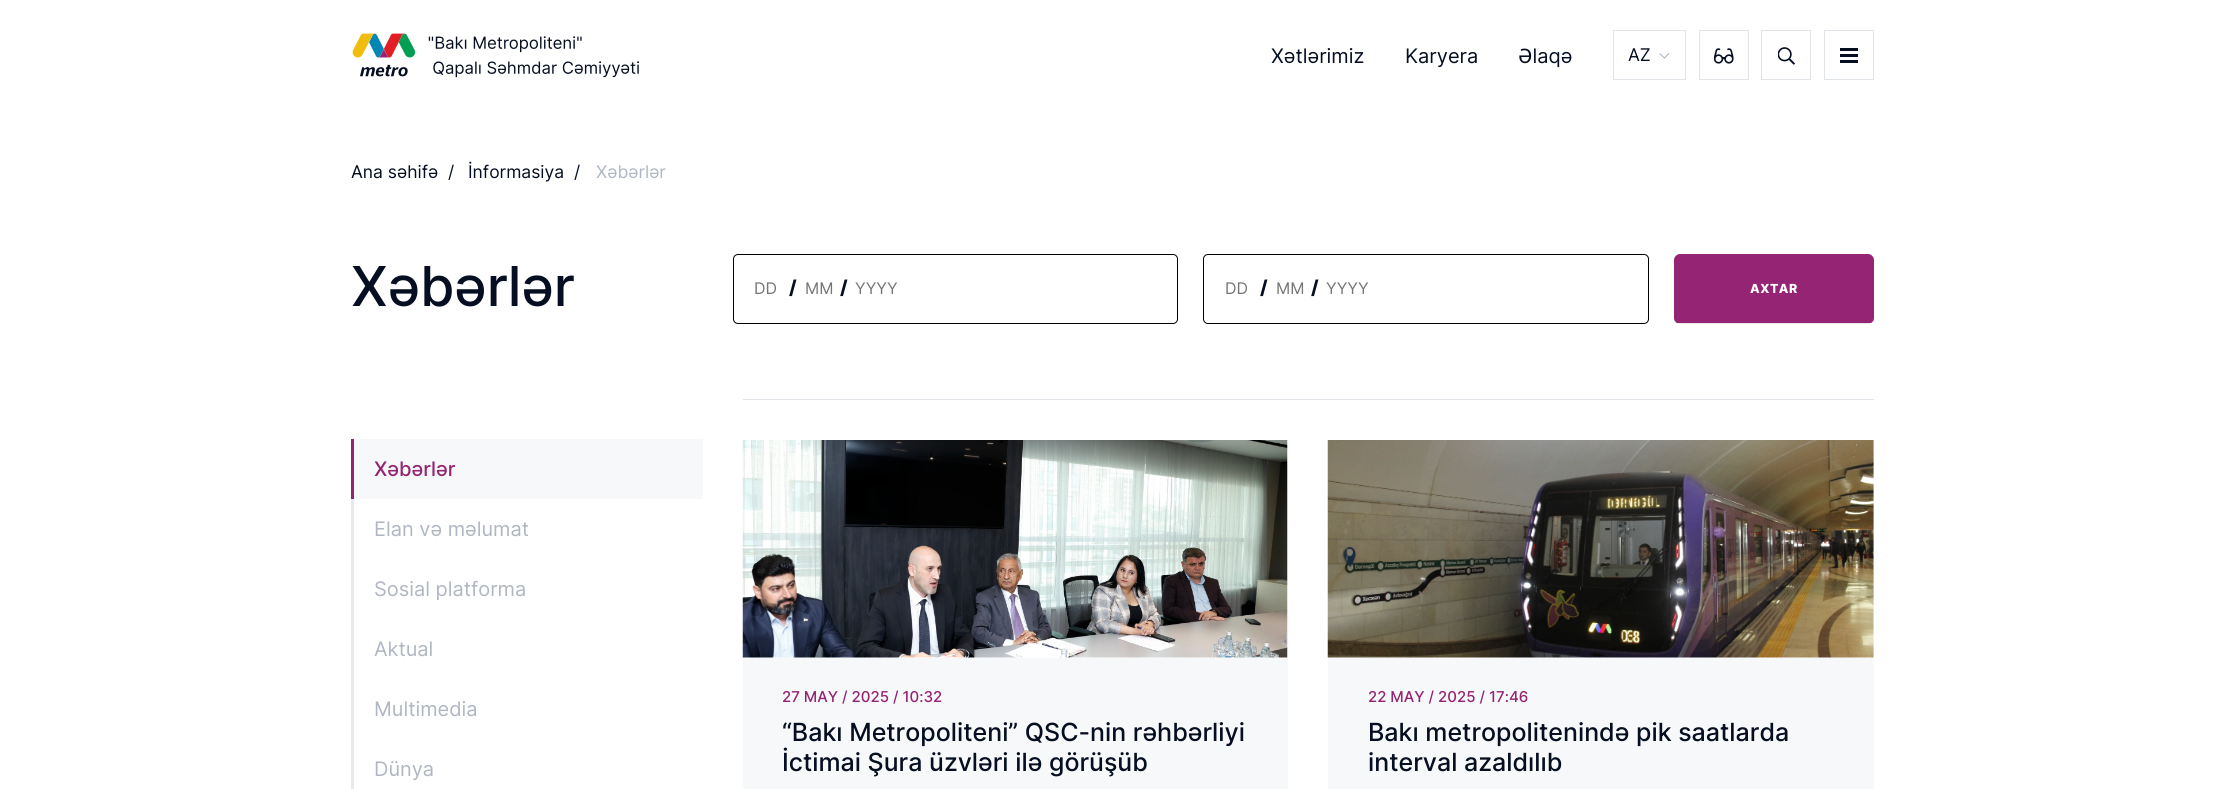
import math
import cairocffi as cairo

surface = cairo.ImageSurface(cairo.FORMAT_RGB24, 2224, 789)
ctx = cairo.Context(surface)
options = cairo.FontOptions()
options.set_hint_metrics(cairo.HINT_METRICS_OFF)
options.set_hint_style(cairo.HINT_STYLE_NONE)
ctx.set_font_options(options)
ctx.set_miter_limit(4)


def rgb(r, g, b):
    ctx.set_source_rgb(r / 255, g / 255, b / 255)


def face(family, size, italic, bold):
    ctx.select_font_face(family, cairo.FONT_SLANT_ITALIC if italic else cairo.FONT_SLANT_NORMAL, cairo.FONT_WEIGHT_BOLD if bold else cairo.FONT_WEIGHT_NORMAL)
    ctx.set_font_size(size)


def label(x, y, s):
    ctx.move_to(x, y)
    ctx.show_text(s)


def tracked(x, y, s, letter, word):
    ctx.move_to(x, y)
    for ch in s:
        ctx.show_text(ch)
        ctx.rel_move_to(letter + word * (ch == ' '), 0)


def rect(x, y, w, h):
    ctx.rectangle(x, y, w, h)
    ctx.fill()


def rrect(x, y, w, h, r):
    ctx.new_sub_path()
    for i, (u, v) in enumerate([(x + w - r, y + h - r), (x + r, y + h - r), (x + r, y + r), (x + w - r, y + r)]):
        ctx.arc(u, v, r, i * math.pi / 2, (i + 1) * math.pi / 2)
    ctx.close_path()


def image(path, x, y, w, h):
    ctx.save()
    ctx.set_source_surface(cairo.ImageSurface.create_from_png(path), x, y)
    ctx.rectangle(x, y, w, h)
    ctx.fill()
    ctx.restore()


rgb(255, 255, 255)
ctx.paint()
image('image0.png', 352, 33, 288, 45)
face('Inter', 20, 0, 0)
rgb(5, 15, 33)
label(1271, 63, 'Xətlərimiz')
label(1405, 63, 'Karyera')
label(1518, 63, 'Əlaqə')
ctx.rectangle(1613.5, 30.5, 72, 49)
rgb(225, 228, 232)
ctx.set_line_width(1)
ctx.stroke()
face('Inter', 17.5, 0, 0)
rgb(5, 15, 33)
label(1628, 61, 'AZ')
image('image1.png', 1659, 53, 11, 6)
ctx.rectangle(1699.5, 30.5, 49, 49)
rgb(225, 228, 232)
ctx.stroke()
image('image2.png', 1714, 48, 20, 16)
ctx.rectangle(1761.5, 30.5, 49, 49)
ctx.stroke()
image('image3.png', 1778, 47, 17, 18)
ctx.rectangle(1824.5, 30.5, 49, 49)
ctx.stroke()
rgb(5, 15, 33)
rect(1840, 54, 18, 3)
rect(1840, 48, 18, 3)
rect(1840, 60, 18, 3)
label(351, 178, 'Ana səhifə')
label(448, 178, '/')
label(468, 178, 'İnformasiya')
label(574, 178, '/')
rgb(176, 183, 195)
label(596, 178, 'Xəbərlər')
face('Inter Medium', 55, 0, 0)
rgb(5, 15, 33)
label(351, 306, 'Xəbərlər')
rrect(733.5, 254.5, 444, 69, 4.5)
rgb(0, 0, 0)
ctx.stroke()
face('Inter', 16, 0, 0)
rgb(117, 117, 117)
label(754, 294, 'DD')
face('Inter ExtraBold', 19, 0, 0)
rgb(5, 15, 33)
label(789, 294, '/')
face('Inter', 16, 0, 0)
rgb(117, 117, 117)
label(805, 294, 'MM')
face('Inter ExtraBold', 19, 0, 0)
rgb(5, 15, 33)
label(840, 294, '/')
face('Inter', 16, 0, 0)
rgb(117, 117, 117)
label(855, 294, 'YYYY')
rrect(1203.5, 254.5, 445, 69, 4.5)
rgb(0, 0, 0)
ctx.stroke()
rgb(117, 117, 117)
label(1225, 294, 'DD')
face('Inter ExtraBold', 19, 0, 0)
rgb(5, 15, 33)
label(1260, 294, '/')
face('Inter', 16, 0, 0)
rgb(117, 117, 117)
label(1276, 294, 'MM')
face('Inter ExtraBold', 19, 0, 0)
rgb(5, 15, 33)
label(1311, 294, '/')
face('Inter', 16, 0, 0)
rgb(117, 117, 117)
label(1326, 294, 'YYYY')
rgb(231, 231, 231)
rrect(1674, 254, 200, 70, 6)
ctx.fill()
rgb(149, 36, 116)
ctx.new_path()
ctx.move_to(1680, 254)
ctx.line_to(1868, 254)
ctx.curve_to(1871, 254, 1874, 257, 1874, 260)
ctx.line_to(1874, 318)
ctx.curve_to(1874, 320, 1873, 322, 1871, 323)
ctx.line_to(1677, 323)
ctx.curve_to(1675, 322, 1674, 320, 1674, 318)
ctx.line_to(1674, 260)
ctx.curve_to(1674, 257, 1677, 254, 1680, 254)
ctx.close_path()
ctx.fill()
face('Inter ExtraBold', 12.5, 0, 0)
rgb(255, 255, 255)
tracked(1750, 293, 'AXTAR', 0.5, 0)
rgb(247, 248, 249)
rect(354, 439, 349, 60)
rgb(149, 36, 116)
rect(351, 439, 3, 60)
face('Inter Medium', 20, 0, 0)
label(374, 476, 'Xəbərlər')
rgb(231, 233, 237)
rect(351, 499, 3, 290)
face('Inter', 20, 0, 0)
rgb(176, 183, 195)
label(374, 536, 'Elan və məlumat')
label(374, 596, 'Sosial platforma')
label(374, 656, 'Aktual')
label(374, 716, 'Multimedia')
label(374, 776, 'Dünya')
rgb(225, 228, 232)
rect(743, 399, 1131, 1)
image('image4.png', 742, 440, 546, 218)
rgb(247, 248, 249)
rect(743, 658, 545, 131)
face('Inter Medium', 15, 0, 0)
rgb(149, 36, 116)
label(782, 702, '27 MAY / 2025 / 10:32')
face('Inter Medium', 25, 0, 0)
rgb(5, 15, 33)
label(782, 741, '“Bakı Metropoliteni” QSC-nin rəhbərliyi')
label(782, 771, 'İctimai Şura üzvləri ilə görüşüb')
image('image5.png', 1327, 440, 547, 218)
rgb(247, 248, 249)
rect(1328, 658, 546, 131)
face('Inter Medium', 15, 0, 0)
rgb(149, 36, 116)
label(1368, 702, '22 MAY / 2025 / 17:46')
face('Inter Medium', 25, 0, 0)
rgb(5, 15, 33)
label(1368, 741, 'Bakı metropolitenində pik saatlarda')
label(1368, 771, 'interval azaldılıb')
surface.write_to_png('render.png')
